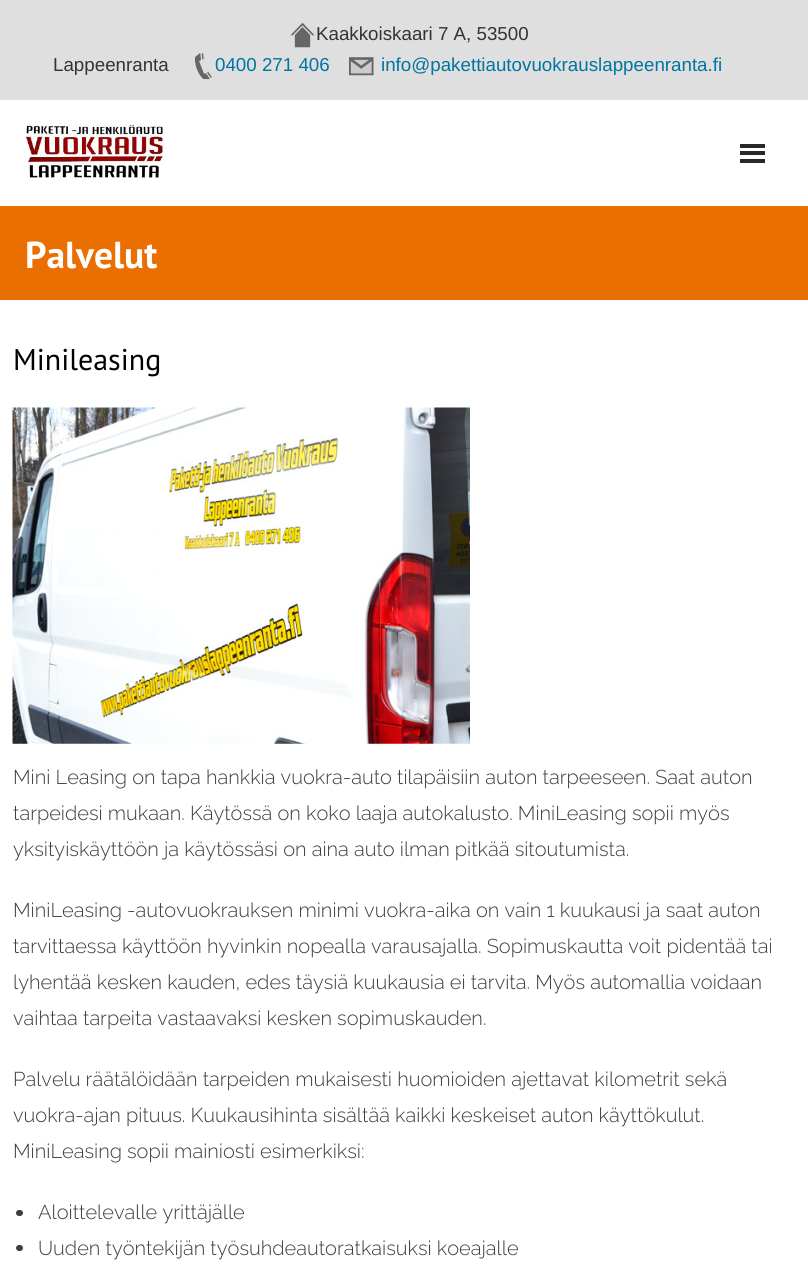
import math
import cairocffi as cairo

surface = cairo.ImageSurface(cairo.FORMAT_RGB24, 808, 1284)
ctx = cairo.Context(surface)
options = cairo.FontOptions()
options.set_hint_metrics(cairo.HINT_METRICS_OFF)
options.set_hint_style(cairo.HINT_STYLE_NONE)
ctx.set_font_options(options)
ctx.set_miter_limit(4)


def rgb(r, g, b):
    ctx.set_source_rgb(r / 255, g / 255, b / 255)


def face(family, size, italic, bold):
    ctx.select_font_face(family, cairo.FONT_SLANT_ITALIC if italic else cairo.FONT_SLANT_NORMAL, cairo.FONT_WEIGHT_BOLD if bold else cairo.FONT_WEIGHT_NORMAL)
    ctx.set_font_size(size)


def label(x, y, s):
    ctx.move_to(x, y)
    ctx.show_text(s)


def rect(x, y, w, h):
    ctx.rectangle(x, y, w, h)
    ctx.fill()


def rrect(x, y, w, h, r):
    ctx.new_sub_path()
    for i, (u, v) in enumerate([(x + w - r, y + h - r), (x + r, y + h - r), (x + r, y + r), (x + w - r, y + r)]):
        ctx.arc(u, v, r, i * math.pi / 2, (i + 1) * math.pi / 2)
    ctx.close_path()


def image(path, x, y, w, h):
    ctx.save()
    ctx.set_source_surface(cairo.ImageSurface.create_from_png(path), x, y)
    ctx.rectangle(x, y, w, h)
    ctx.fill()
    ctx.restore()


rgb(223, 223, 223)
ctx.paint()
image('image0.png', 290, 22, 25, 26)
face('Liberation Sans', 18.75, 0, 0)
rgb(51, 51, 51)
label(316, 40, 'Kaakkoiskaari 7 A, 53500')
label(53, 71, 'Lappeenranta')
image('image1.png', 195, 53, 17, 27)
rgb(0, 116, 162)
label(215, 71, '0400 271 406')
image('image2.png', 349, 57, 25, 19)
label(381, 71, 'info@pakettiautovuokrauslappeenranta.fi')
rgb(255, 255, 255)
rect(0, 100, 808, 1184)
image('image3.png', 25, 125, 139, 55)
rgb(41, 41, 41)
rect(740, 144, 25, 4)
rect(740, 151, 25, 4)
rect(740, 159, 25, 4)
rgb(234, 110, 0)
rect(0, 206, 808, 94)
face('PT Sans', 37.5, 0, 1)
rgb(255, 255, 255)
label(25, 268, 'Palvelut')
face('PT Sans', 30, 0, 0)
rgb(0, 0, 0)
label(13, 370, 'Minileasing')
image('image4.png', 12, 407, 458, 337)
face('Raleway Light', 20, 0, 0)
rgb(61, 61, 61)
label(13, 784, 'Mini Leasing on tapa hankkia vuokra-auto tilapäisiin auton tarpeeseen. Saat auton')
label(13, 820, 'tarpeidesi mukaan. Käytössä on koko laaja autokalusto. MiniLeasing sopii myös')
label(13, 856, 'yksityiskäyttöön ja käytössäsi on aina auto ilman pitkää sitoutumista.')
label(13, 917, 'MiniLeasing -autovuokrauksen minimi vuokra-aika on vain 1 kuukausi ja saat auton')
label(13, 953, 'tarvittaessa käyttöön hyvinkin nopealla varausajalla. Sopimuskautta voit pidentää tai')
label(13, 989, 'lyhentää kesken kauden, edes täysiä kuukausia ei tarvita. Myös automallia voidaan')
label(13, 1025, 'vaihtaa tarpeita vastaavaksi kesken sopimuskauden.')
label(13, 1086, 'Palvelu räätälöidään tarpeiden mukaisesti huomioiden ajettavat kilometrit sekä')
label(13, 1122, 'vuokra-ajan pituus. Kuukausihinta sisältää kaikki keskeiset auton käyttökulut.')
label(13, 1158, 'MiniLeasing sopii mainiosti esimerkiksi:')
rrect(16, 1210, 7, 6, 3)
ctx.fill()
label(38, 1219, 'Aloittelevalle yrittäjälle')
rrect(16, 1245, 7, 6, 3)
ctx.fill()
label(38, 1255, 'Uuden työntekijän työsuhdeautoratkaisuksi koeajalle')
surface.write_to_png('render.png')
